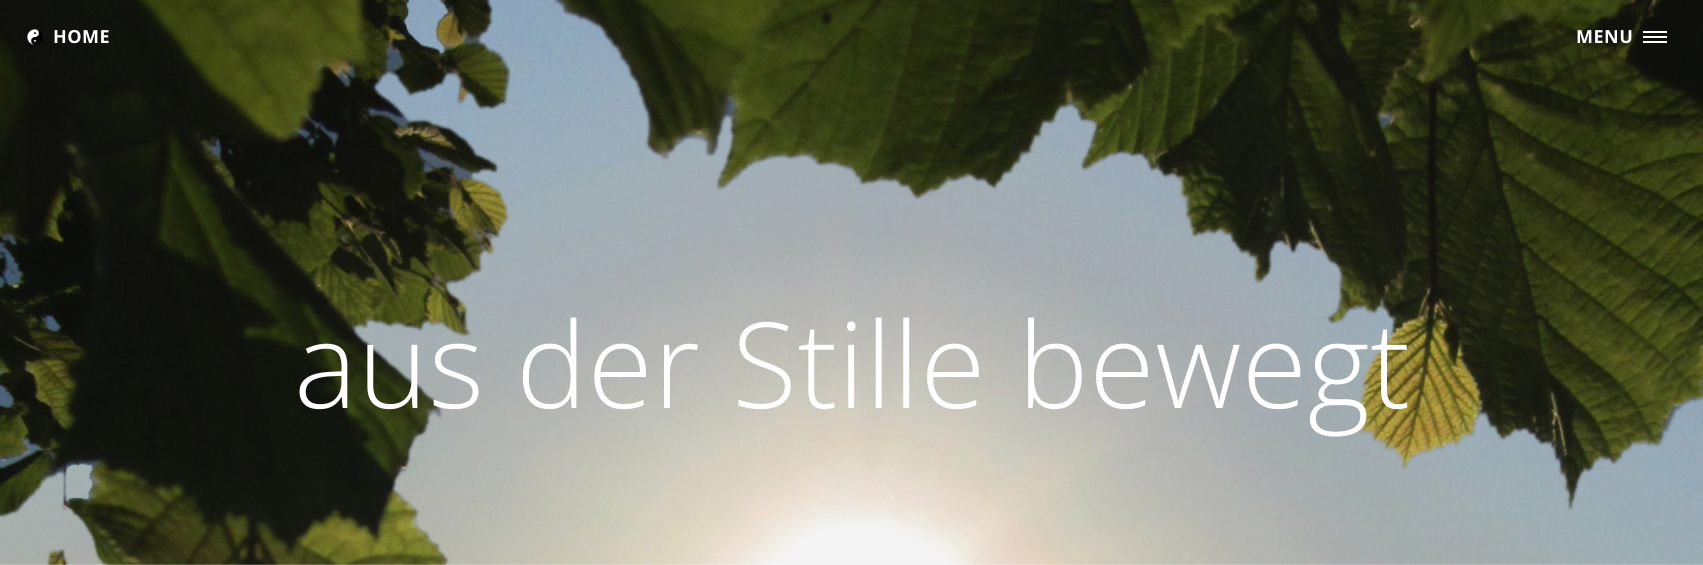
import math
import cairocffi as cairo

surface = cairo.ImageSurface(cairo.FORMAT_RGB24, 1703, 565)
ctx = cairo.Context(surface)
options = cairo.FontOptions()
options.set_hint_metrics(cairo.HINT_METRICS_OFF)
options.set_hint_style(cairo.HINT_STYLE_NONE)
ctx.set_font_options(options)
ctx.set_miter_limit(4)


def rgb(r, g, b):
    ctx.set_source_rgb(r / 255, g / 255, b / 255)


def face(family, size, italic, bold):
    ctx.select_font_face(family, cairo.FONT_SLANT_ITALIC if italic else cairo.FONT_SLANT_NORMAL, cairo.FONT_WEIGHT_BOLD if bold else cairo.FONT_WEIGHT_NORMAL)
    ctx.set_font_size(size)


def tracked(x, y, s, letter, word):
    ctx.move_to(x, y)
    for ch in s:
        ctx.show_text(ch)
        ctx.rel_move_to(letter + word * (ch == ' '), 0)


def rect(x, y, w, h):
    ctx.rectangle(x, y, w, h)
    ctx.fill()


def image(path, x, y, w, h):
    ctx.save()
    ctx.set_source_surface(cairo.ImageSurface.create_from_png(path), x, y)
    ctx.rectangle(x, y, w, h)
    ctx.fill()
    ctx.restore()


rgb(255, 255, 255)
ctx.paint()
image('image1.png', 0, 0, 1703, 565)
image('image0.png', 27, 29, 16, 16)
face('Open Sans', 18, 0, 1)
rgb(255, 255, 255)
tracked(53, 43, 'HOME', 0.5, 0)
tracked(1576, 43, 'MENU', 0.5, 0)
rect(1643, 31, 24, 2)
rect(1643, 41, 24, 2)
rect(1643, 36, 24, 2)
face('Open Sans Light', 119, 0, 0)
tracked(294, 408, 'aus der Stille bewegt', 0.6, 0)
surface.write_to_png('render.png')
